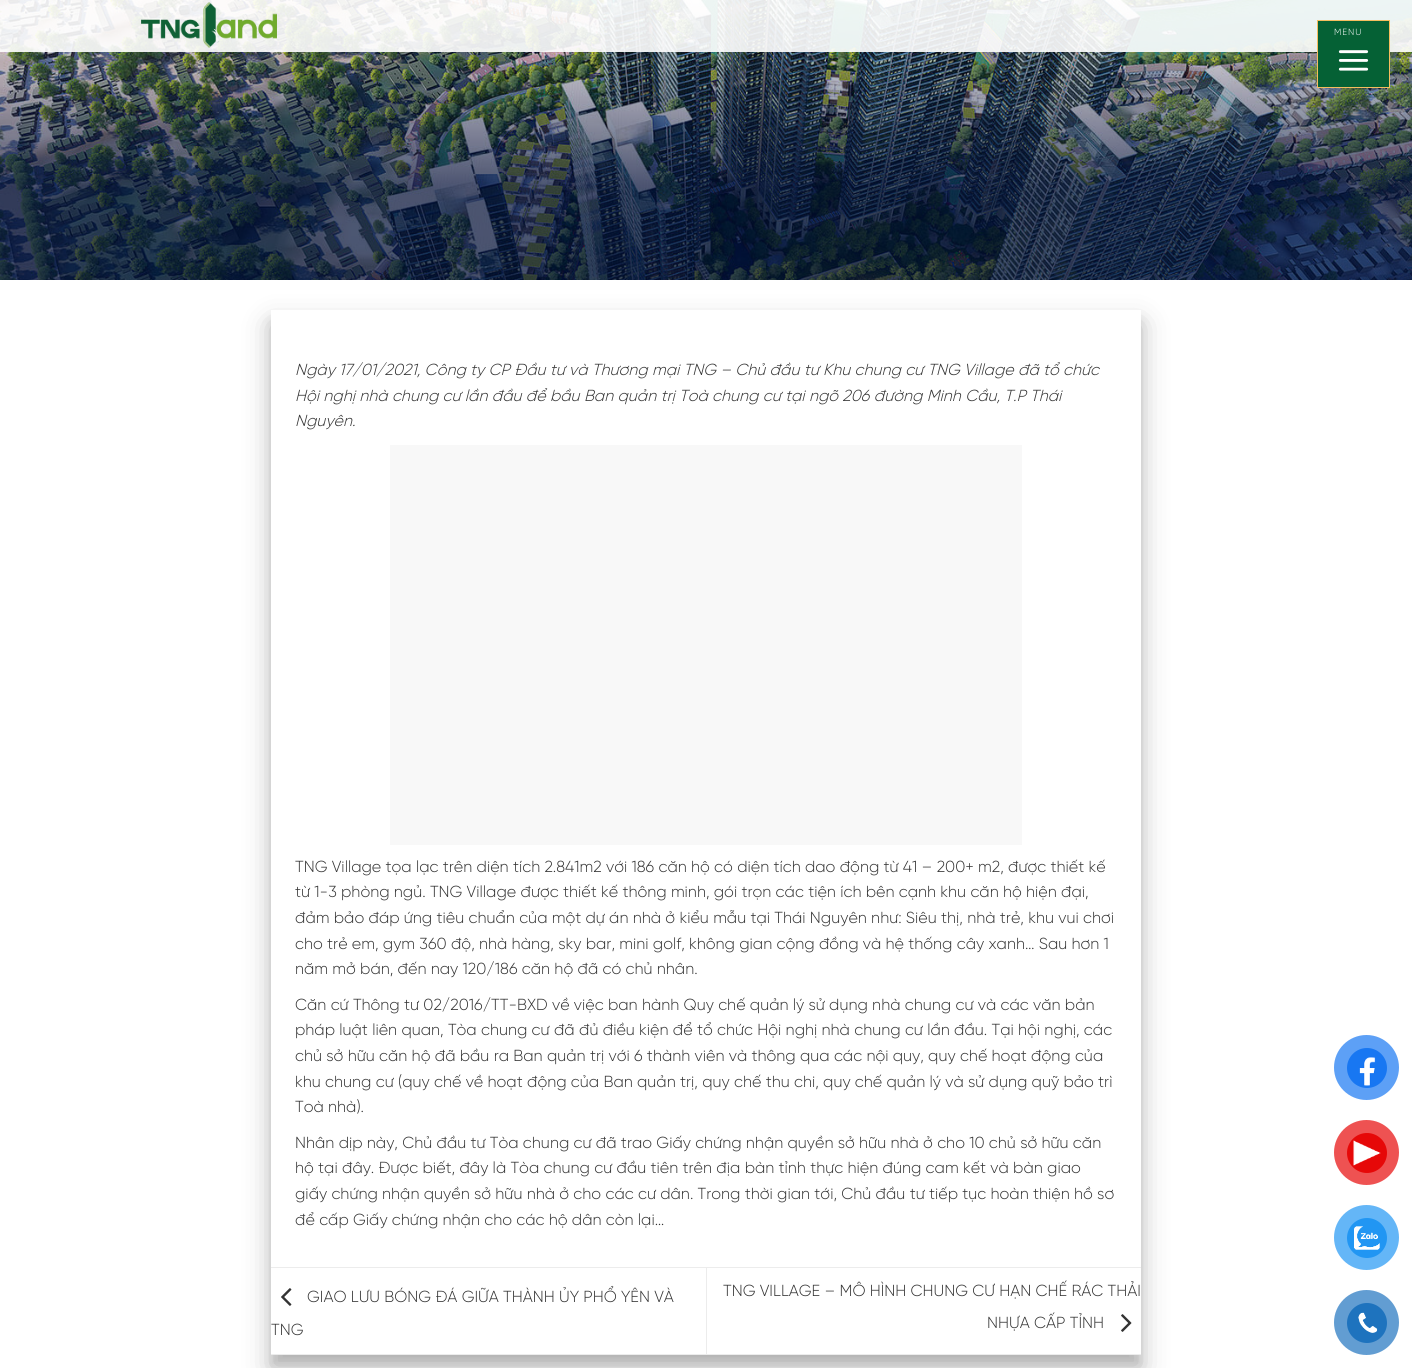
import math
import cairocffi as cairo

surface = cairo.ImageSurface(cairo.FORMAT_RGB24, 1412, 1368)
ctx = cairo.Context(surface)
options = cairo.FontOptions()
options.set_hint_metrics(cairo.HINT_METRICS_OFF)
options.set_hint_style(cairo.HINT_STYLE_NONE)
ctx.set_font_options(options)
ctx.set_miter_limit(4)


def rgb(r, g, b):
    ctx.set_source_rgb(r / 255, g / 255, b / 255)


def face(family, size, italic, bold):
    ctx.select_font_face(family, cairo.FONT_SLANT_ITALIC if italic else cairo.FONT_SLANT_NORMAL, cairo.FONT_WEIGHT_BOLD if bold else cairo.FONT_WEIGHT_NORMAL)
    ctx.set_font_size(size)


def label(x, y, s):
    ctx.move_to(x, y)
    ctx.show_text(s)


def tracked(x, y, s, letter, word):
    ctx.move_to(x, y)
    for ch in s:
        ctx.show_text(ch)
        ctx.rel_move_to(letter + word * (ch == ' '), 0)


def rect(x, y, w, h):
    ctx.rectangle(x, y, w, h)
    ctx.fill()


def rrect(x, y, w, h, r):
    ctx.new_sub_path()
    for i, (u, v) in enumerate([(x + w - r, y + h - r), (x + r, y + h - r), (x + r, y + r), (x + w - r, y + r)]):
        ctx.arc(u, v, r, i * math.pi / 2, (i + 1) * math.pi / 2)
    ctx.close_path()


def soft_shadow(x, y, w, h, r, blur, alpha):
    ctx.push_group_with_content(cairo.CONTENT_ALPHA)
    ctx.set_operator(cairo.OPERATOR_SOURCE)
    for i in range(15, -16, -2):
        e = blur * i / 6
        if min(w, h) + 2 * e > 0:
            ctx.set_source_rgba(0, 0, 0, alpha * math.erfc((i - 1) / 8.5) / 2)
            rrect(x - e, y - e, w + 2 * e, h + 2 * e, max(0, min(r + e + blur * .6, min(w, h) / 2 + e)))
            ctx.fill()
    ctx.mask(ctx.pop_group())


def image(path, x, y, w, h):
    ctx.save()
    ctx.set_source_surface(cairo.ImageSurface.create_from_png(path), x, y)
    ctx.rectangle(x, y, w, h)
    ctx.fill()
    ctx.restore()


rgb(255, 255, 255)
ctx.paint()
image('image0.png', 0, 0, 1412, 280)
ctx.set_source_rgba(1, 1, 1, 0.9)
rect(0, 0, 1412, 52)
image('image1.png', 141, 2, 136, 46)
rgb(5, 97, 53)
ctx.rectangle(1317.5, 20.5, 72, 67)
ctx.fill_preserve()
rgb(245, 190, 95)
ctx.set_line_width(1)
ctx.stroke()
face('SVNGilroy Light', 9, 0, 0)
rgb(255, 255, 255)
tracked(1334, 35, 'MENU', 1, 0)
image('image2.png', 1338, 50, 31, 21)
ctx.save()
ctx.set_fill_rule(cairo.FILL_RULE_EVEN_ODD)
ctx.new_path()
ctx.move_to(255, 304)
ctx.line_to(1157, 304)
ctx.line_to(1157, 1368)
ctx.line_to(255, 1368)
ctx.close_path()
ctx.move_to(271, 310)
ctx.line_to(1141, 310)
ctx.line_to(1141, 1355)
ctx.line_to(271, 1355)
ctx.close_path()
ctx.clip()
rgb(0, 0, 0)
soft_shadow(271, 320, 870, 1045, 0, 5, 0.1)
ctx.restore()
ctx.save()
ctx.set_fill_rule(cairo.FILL_RULE_EVEN_ODD)
ctx.new_path()
ctx.move_to(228, 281)
ctx.line_to(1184, 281)
ctx.line_to(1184, 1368)
ctx.line_to(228, 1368)
ctx.close_path()
ctx.move_to(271, 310)
ctx.line_to(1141, 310)
ctx.line_to(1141, 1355)
ctx.line_to(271, 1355)
ctx.close_path()
ctx.clip()
rgb(0, 0, 0)
soft_shadow(271, 324, 870, 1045, 0, 14, 0.25)
ctx.restore()
face('SVNGilroy Light', 16, 1, 0)
rgb(51, 51, 51)
label(295, 375, 'Ngày 17/01/2021, Công ty CP Đầu tư và Thương mại TNG – Chủ đầu tư Khu chung cư TNG Village đã tổ chức')
label(295, 401, 'Hội nghị nhà chung cư lần đầu để bầu Ban quản trị Toà chung cư tại ngõ 206 đường Minh Cầu, T.P Thái')
label(295, 426, 'Nguyên.')
rgb(248, 248, 248)
rect(390, 445, 632, 400)
face('SVNGilroy Light', 16, 0, 0)
rgb(51, 51, 51)
label(295, 872, 'TNG Village tọa lạc trên diện tích 2.841m2 với 186 căn hộ có diện tích dao động từ 41 – 200+ m2, được thiết kế')
label(295, 897, 'từ 1-3 phòng ngủ. TNG Village được thiết kế thông minh, gói trọn các tiện ích bên cạnh khu căn hộ hiện đại,')
label(295, 923, 'đảm bảo đáp ứng tiêu chuẩn của một dự án nhà ở kiểu mẫu tại Thái Nguyên như: Siêu thị, nhà trẻ, khu vui chơi')
label(295, 949, 'cho trẻ em, gym 360 độ, nhà hàng, sky bar, mini golf, không gian cộng đồng và hệ thống cây xanh… Sau hơn 1')
label(295, 974, 'năm mở bán, đến nay 120/186 căn hộ đã có chủ nhân.')
label(295, 1010, 'Căn cứ Thông tư 02/2016/TT-BXD về việc ban hành Quy chế quản lý sử dụng nhà chung cư và các văn bản')
label(295, 1035, 'pháp luật liên quan, Tòa chung cư đã đủ điều kiện để tổ chức Hội nghị nhà chung cư lần đầu. Tại hội nghị, các')
label(295, 1061, 'chủ sở hữu căn hộ đã bầu ra Ban quản trị với 6 thành viên và thông qua các nội quy, quy chế hoạt động của')
label(295, 1087, 'khu chung cư (quy chế về hoạt động của Ban quản trị, quy chế thu chi, quy chế quản lý và sử dụng quỹ bảo trì')
label(295, 1112, 'Toà nhà).')
label(295, 1148, 'Nhân dịp này, Chủ đầu tư Tòa chung cư đã trao Giấy chứng nhận quyền sở hữu nhà ở cho 10 chủ sở hữu căn')
label(295, 1173, 'hộ tại đây. Được biết, đây là Tòa chung cư đầu tiên trên địa bàn tỉnh thực hiện đúng cam kết và bàn giao')
label(295, 1199, 'giấy chứng nhận quyền sở hữu nhà ở cho các cư dân. Trong thời gian tới, Chủ đầu tư tiếp tục hoàn thiện hồ sơ')
label(295, 1225, 'để cấp Giấy chứng nhận cho các hộ dân còn lại…')
rgb(236, 236, 236)
rect(271, 1267, 870, 1)
rect(271, 1354, 870, 1)
image('image3.png', 281, 1288, 11, 18)
rgb(51, 51, 51)
label(307, 1302, 'GIAO LƯU BÓNG ĐÁ GIỮA THÀNH ỦY PHỔ YÊN VÀ')
label(271, 1335, 'TNG')
rgb(236, 236, 236)
rect(706, 1268, 1, 86)
rgb(51, 51, 51)
label(723, 1296, 'TNG VILLAGE – MÔ HÌNH CHUNG CƯ HẠN CHẾ RÁC THẢI')
label(987, 1328, 'NHỰA CẤP TỈNH')
image('image4.png', 1121, 1314, 11, 18)
rgb(93, 160, 246)
ctx.arc(1366.5, 1067.5, 32.5, 0, 2 * math.pi)
ctx.fill()
rgb(24, 119, 242)
ctx.arc(1367, 1068, 20, 0, 2 * math.pi)
ctx.fill()
image('image5.png', 1359, 1057, 17, 29)
rgb(238, 82, 82)
ctx.arc(1366.5, 1152.5, 32.5, 0, 2 * math.pi)
ctx.fill()
rgb(230, 8, 8)
ctx.arc(1367, 1153, 20, 0, 2 * math.pi)
ctx.fill()
image('image6.png', 1353, 1140, 28, 26)
rgb(100, 182, 247)
ctx.arc(1366.5, 1237.5, 32.5, 0, 2 * math.pi)
ctx.fill()
rgb(33, 150, 243)
ctx.arc(1367, 1238, 20, 0, 2 * math.pi)
ctx.fill()
image('image7.png', 1354, 1226, 26, 24)
rgb(98, 157, 210)
ctx.arc(1366.5, 1322.5, 32.5, 0, 2 * math.pi)
ctx.fill()
rgb(30, 115, 190)
ctx.arc(1367, 1323, 20, 0, 2 * math.pi)
ctx.fill()
image('image8.png', 1358, 1312, 20, 21)
surface.write_to_png('render.png')
